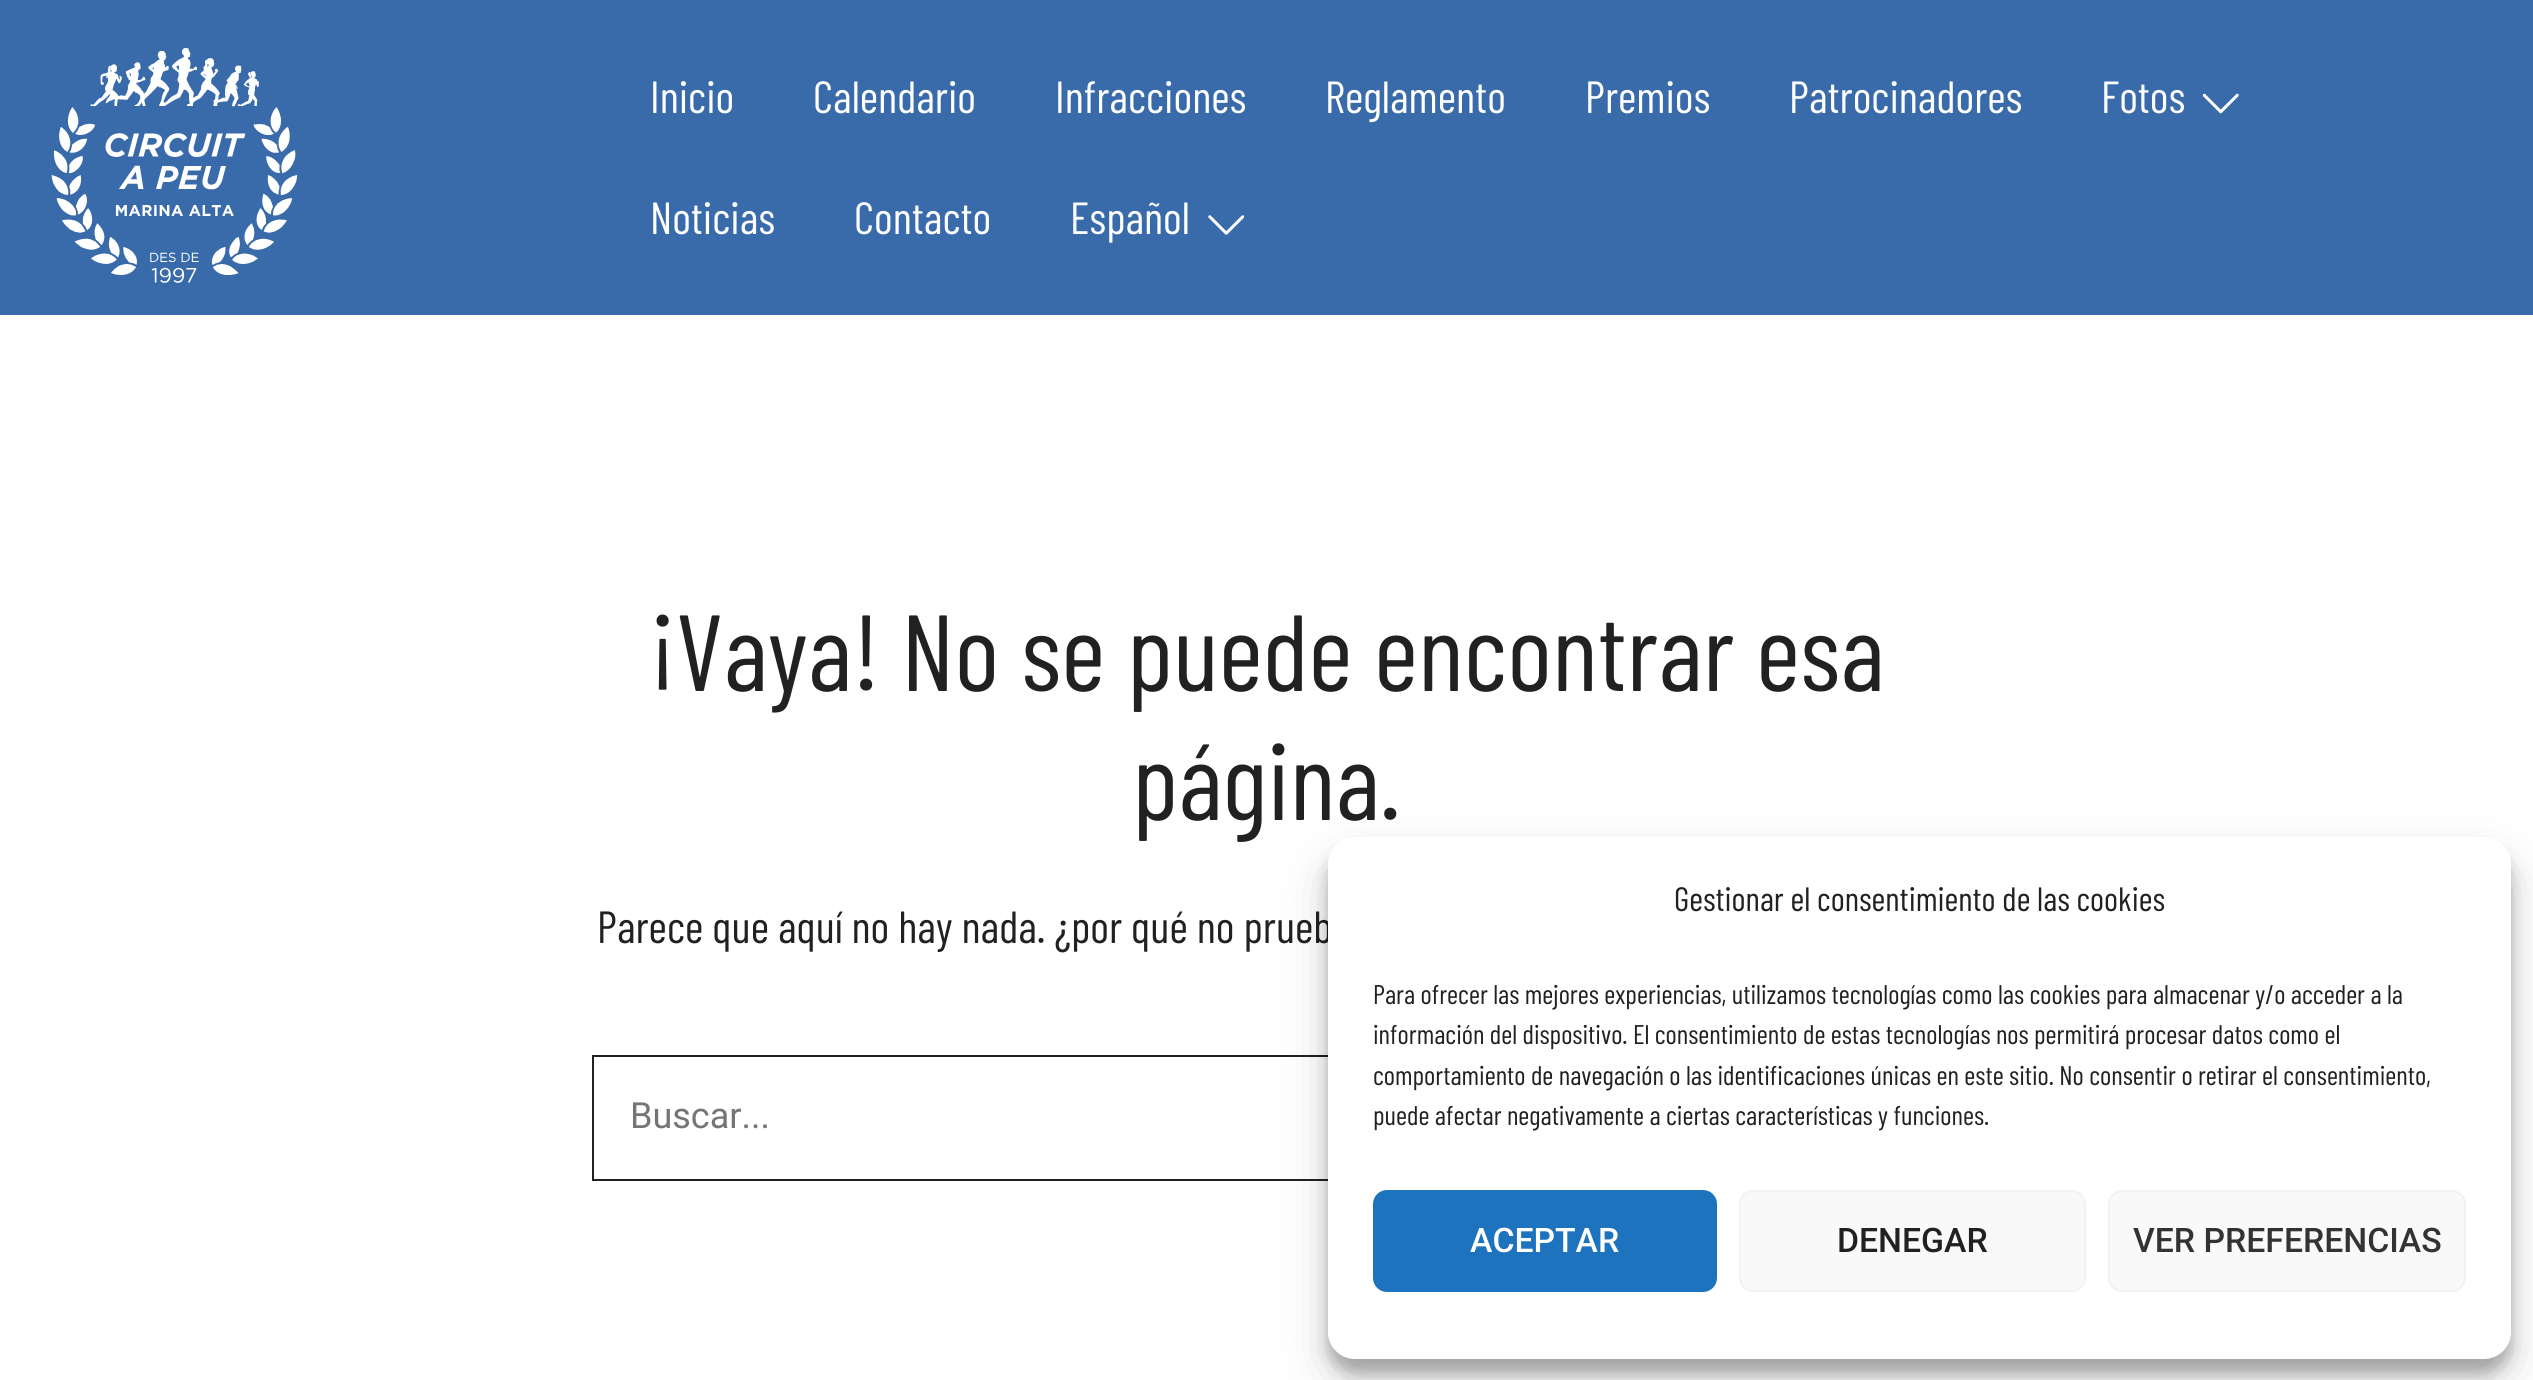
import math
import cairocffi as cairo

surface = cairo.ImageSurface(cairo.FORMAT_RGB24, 2533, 1380)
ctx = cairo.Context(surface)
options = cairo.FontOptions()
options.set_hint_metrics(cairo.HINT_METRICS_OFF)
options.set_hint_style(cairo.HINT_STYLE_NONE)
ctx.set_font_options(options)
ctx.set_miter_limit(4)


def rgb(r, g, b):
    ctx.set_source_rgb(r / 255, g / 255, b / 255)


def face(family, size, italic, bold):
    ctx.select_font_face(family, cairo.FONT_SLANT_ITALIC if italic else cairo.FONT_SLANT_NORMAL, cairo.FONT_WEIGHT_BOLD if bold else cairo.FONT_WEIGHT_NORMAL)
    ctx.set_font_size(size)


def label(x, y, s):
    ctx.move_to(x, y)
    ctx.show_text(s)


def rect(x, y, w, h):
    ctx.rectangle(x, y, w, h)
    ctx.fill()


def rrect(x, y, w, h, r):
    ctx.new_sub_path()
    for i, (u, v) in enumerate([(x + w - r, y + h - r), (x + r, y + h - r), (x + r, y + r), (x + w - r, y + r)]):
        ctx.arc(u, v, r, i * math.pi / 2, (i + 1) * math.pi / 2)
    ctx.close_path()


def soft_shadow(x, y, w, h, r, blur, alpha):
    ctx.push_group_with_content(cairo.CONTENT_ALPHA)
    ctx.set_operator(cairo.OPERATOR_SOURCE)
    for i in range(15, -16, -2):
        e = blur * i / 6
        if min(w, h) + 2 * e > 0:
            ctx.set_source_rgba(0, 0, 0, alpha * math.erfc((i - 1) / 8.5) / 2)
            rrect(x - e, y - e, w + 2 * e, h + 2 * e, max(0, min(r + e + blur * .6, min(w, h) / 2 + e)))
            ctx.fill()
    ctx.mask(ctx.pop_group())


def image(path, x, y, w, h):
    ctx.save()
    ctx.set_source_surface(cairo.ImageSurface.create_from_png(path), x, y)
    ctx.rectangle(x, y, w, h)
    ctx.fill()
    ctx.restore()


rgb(255, 255, 255)
ctx.paint()
rgb(57, 107, 171)
rect(0, 0, 2533, 315)
image('image0.png', 51, 48, 247, 235)
face('Barlow Condensed', 45, 0, 0)
rgb(255, 255, 255)
label(650, 113, 'Inicio')
label(813, 113, 'Calendario')
label(1055, 113, 'Infracciones')
label(1325, 113, 'Reglamento')
label(1585, 113, 'Premios')
label(1789, 113, 'Patrocinadores')
label(2101, 113, 'Fotos')
image('image1.png', 2203, 93, 36, 21)
label(650, 234, 'Noticias')
label(854, 234, 'Contacto')
label(1070, 234, 'Español')
image('image2.png', 1208, 215, 36, 20)
face('Barlow Condensed', 108, 0, 0)
rgb(33, 33, 33)
label(649, 691, '¡Vaya! No se puede encontrar esa')
label(1132, 820, 'página.')
face('Barlow Condensed', 45, 0, 0)
label(597, 943, 'Parece que aquí no hay nada. ¿por qué no prueb')
ctx.rectangle(593, 1056, 1177, 124)
ctx.stroke()
face('Roboto', 36, 0, 0)
rgb(117, 117, 117)
label(630, 1128, 'Buscar...')
rgb(0, 0, 0)
soft_shadow(1328, 851, 1183, 522, 27, 7, 0.23)
soft_shadow(1328, 860, 1183, 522, 27, 22.5, 0.19)
rgb(255, 255, 255)
rrect(1328, 837, 1183, 522, 27)
ctx.fill()
face('Barlow Condensed', 33.75, 0, 0)
rgb(33, 33, 33)
label(1674, 911, 'Gestionar el consentimiento de las cookies')
face('Barlow Condensed', 27, 0, 0)
label(1373, 1004, 'Para ofrecer las mejores experiencias, utilizamos tecnologías como las cookies para almacenar y/o acceder a la')
label(1373, 1044, 'información del dispositivo. El consentimiento de estas tecnologías nos permitirá procesar datos como el')
label(1373, 1085, 'comportamiento de navegación o las identificaciones únicas en este sitio. No consentir o retirar el consentimiento,')
label(1373, 1125, 'puede afectar negativamente a ciertas características y funciones.')
rgb(30, 115, 190)
rrect(1374, 1191, 342, 100, 13)
ctx.fill_preserve()
ctx.stroke()
face('Roboto Medium', 33.75, 0, 0)
rgb(255, 255, 255)
label(1470, 1252, 'ACEPTAR')
rgb(249, 249, 249)
rrect(1740, 1191, 345, 100, 13)
ctx.fill_preserve()
rgb(242, 242, 242)
ctx.stroke()
rgb(33, 33, 33)
label(1837, 1252, 'DENEGAR')
rgb(249, 249, 249)
rrect(2109, 1191, 356, 100, 13)
ctx.fill_preserve()
rgb(242, 242, 242)
ctx.stroke()
rgb(51, 51, 51)
label(2133, 1252, 'VER PREFERENCIAS')
surface.write_to_png('render.png')
